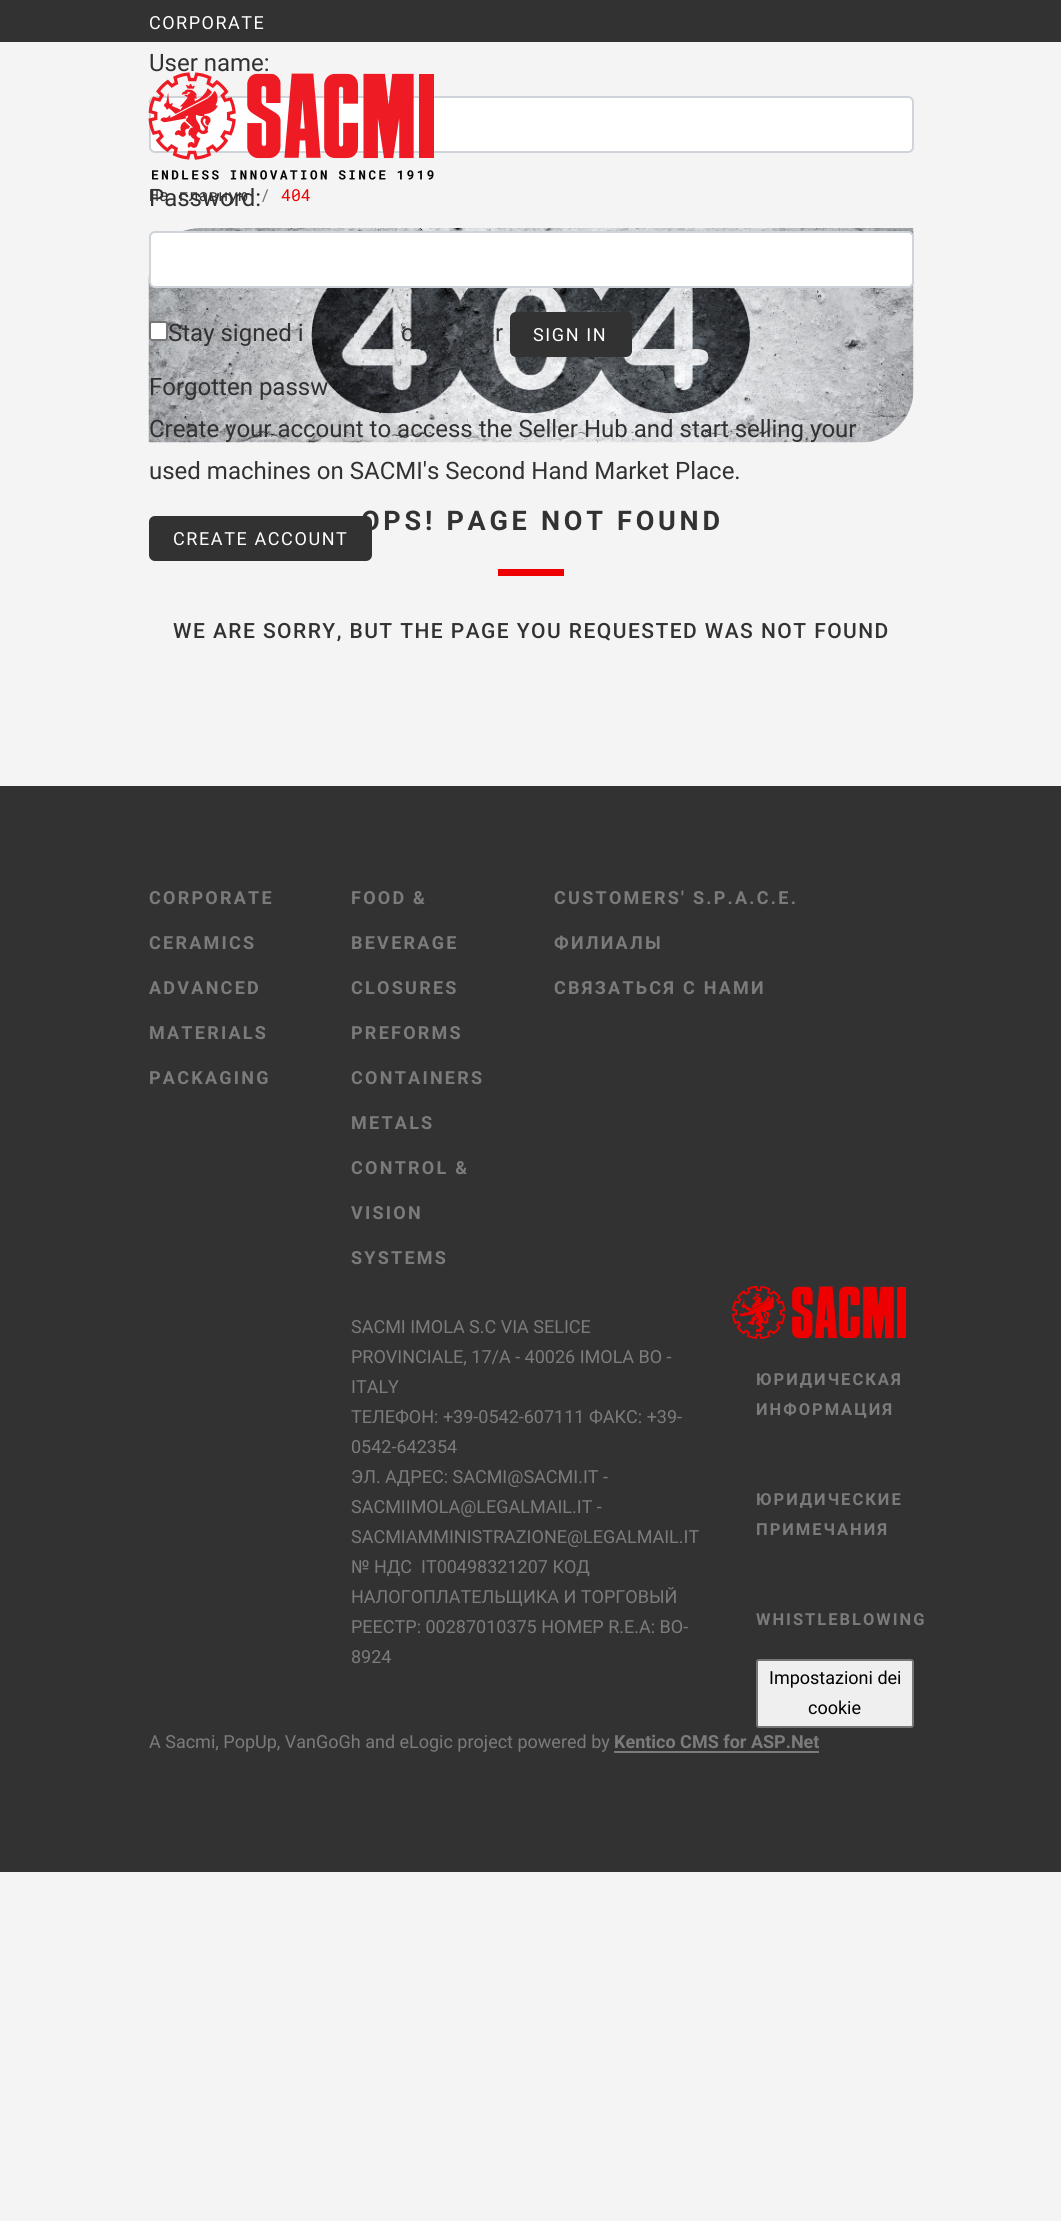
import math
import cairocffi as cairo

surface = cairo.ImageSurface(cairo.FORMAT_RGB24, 1061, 2221)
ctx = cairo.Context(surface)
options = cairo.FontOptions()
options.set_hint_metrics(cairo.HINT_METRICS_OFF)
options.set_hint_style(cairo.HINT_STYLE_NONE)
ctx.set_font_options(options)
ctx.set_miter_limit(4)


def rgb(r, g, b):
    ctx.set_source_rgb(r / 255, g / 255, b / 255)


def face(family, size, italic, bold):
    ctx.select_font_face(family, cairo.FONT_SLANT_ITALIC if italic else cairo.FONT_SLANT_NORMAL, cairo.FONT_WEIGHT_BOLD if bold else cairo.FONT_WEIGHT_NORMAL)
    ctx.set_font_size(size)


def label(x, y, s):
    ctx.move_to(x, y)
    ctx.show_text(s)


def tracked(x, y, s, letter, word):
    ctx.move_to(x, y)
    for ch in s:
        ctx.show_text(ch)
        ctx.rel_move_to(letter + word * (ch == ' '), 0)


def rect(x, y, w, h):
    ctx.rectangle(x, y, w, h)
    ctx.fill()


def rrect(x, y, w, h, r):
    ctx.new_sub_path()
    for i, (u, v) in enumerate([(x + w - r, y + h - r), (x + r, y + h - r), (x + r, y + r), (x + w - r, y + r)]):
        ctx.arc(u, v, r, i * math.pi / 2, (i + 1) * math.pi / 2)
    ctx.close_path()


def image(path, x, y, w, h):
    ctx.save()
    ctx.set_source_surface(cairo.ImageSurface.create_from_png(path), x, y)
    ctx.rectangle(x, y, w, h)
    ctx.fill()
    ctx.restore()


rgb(244, 244, 244)
ctx.paint()
rgb(50, 50, 50)
rect(0, 0, 1061, 42)
face('Roboto', 18, 0, 0)
rgb(255, 255, 255)
tracked(149, 29, 'CORPORATE', 1.5, 0)
face('Roboto', 24, 0, 0)
rgb(50, 50, 50)
label(149, 71, 'User name:')
rgb(255, 255, 255)
rrect(150, 97, 763, 55, 5)
ctx.fill_preserve()
rgb(206, 212, 218)
ctx.stroke()
face('Roboto Mono', 16.5, 0, 0)
rgb(50, 50, 50)
label(149, 201, 'На главную')
face('Roboto', 24, 0, 0)
label(149, 206, 'Password:')
image('image1.png', 148, 228, 766, 215)
rgb(255, 255, 255)
rrect(150, 232, 763, 55, 5)
ctx.fill_preserve()
rgb(206, 212, 218)
ctx.stroke()
rgb(255, 255, 255)
rrect(150, 322, 17, 18, 2)
ctx.fill_preserve()
rgb(118, 118, 118)
ctx.stroke()
rgb(50, 50, 50)
label(168, 341, 'Stay signed i')
label(401, 341, 'c')
label(495, 341, 'r')
rrect(510, 312, 122, 45, 6)
ctx.fill()
face('Roboto', 18, 0, 0)
rgb(255, 255, 255)
tracked(533, 341, 'SIGN IN', 1.6, 0)
face('Roboto', 24, 0, 0)
rgb(50, 50, 50)
label(149, 395, 'Forgotten passw')
label(149, 437, 'Create your account to access the Seller Hub and start selling your')
label(149, 479, 'used machines on SACMI\'s Second Hand Market Place.')
rrect(149, 516, 223, 45, 6)
ctx.fill()
face('Roboto', 18, 0, 0)
rgb(255, 255, 255)
tracked(173, 545, 'CREATE ACCOUNT', 1.6, 0)
image('image0.png', 148, 72, 286, 108)
face('Roboto Mono', 16.5, 0, 0)
rgb(108, 117, 125)
label(260, 201, '/')
rgb(238, 0, 0)
label(281, 201, '404')
face('Roboto', 27, 0, 1)
rgb(50, 50, 50)
tracked(361, 530, 'OPS! PAGE NOT FOUND', 3.75, 0)
rgb(238, 0, 0)
rect(498, 569, 66, 7)
face('Roboto Medium', 21, 0, 0)
rgb(50, 50, 50)
tracked(173, 638, 'WE ARE SORRY, BUT THE PAGE YOU REQUESTED WAS NOT FOUND', 1.45, 0)
rect(0, 786, 1061, 1086)
face('Roboto', 18, 0, 1)
rgb(123, 123, 123)
tracked(149, 904, 'CORPORATE', 2.25, 0)
tracked(149, 949, 'CERAMICS', 2.25, 0)
tracked(149, 994, 'ADVANCED', 2.25, 0)
tracked(149, 1039, 'MATERIALS', 2.25, 0)
tracked(149, 1084, 'PACKAGING', 2.25, 0)
tracked(351, 904, 'FOOD &', 2.25, 0)
tracked(351, 949, 'BEVERAGE', 2.25, 0)
tracked(351, 994, 'CLOSURES', 2.25, 0)
tracked(351, 1039, 'PREFORMS', 2.25, 0)
tracked(351, 1084, 'CONTAINERS', 2.25, 0)
tracked(351, 1129, 'METALS', 2.25, 0)
tracked(351, 1174, 'CONTROL &', 2.25, 0)
tracked(351, 1219, 'VISION', 2.25, 0)
tracked(351, 1264, 'SYSTEMS', 2.25, 0)
tracked(554, 904, 'CUSTOMERS\' S.P.A.C.E.', 2.25, 0)
tracked(554, 949, 'ФИЛИАЛЫ', 2.25, 0)
tracked(554, 994, 'СВЯЗАТЬСЯ С НАМИ', 2.25, 0)
image('image2.png', 732, 1286, 174, 54)
face('Roboto', 18, 0, 0)
label(351, 1333, 'SACMI IMOLA S.C VIA SELICE')
label(351, 1363, 'PROVINCIALE, 17/A - 40026 IMOLA BO -')
label(351, 1393, 'ITALY')
label(351, 1423, 'ТЕЛЕФОН: +39-0542-607111 ФАКС: +39-')
label(351, 1453, '0542-642354')
label(351, 1483, 'ЭЛ. АДРЕС: SACMI@SACMI.IT -')
label(351, 1513, 'SACMIIMOLA@LEGALMAIL.IT -')
label(351, 1543, 'SACMIAMMINISTRAZIONE@LEGALMAIL.IT')
label(351, 1573, '№ НДС  IT00498321207 КОД')
label(351, 1603, 'НАЛОГОПЛАТЕЛЬЩИКА И ТОРГОВЫЙ')
label(351, 1633, 'РЕЕСТР: 00287010375 НОМЕР R.E.A: BO-')
label(351, 1663, '8924')
face('Roboto', 16.5, 0, 1)
tracked(756, 1385, 'ЮРИДИЧЕСКАЯ', 2, 0)
tracked(756, 1415, 'ИНФОРМАЦИЯ', 2, 0)
tracked(756, 1505, 'ЮРИДИЧЕСКИЕ', 2, 0)
tracked(756, 1535, 'ПРИМЕЧАНИЯ', 2, 0)
tracked(756, 1625, 'WHISTLEBLOWING', 2, 0)
rgb(239, 239, 239)
rrect(757, 1660, 156, 67, 2)
ctx.fill_preserve()
rgb(118, 118, 118)
ctx.stroke()
face('Roboto', 18, 0, 0)
rgb(0, 0, 0)
label(769, 1684, 'Impostazioni dei')
label(808, 1714, 'cookie')
rgb(123, 123, 123)
label(149, 1748, 'A Sacmi, PopUp, VanGoGh and eLogic project powered by')
face('Roboto', 18, 0, 1)
label(614, 1748, 'Kentico CMS for ASP.Net')
rect(614, 1751, 205, 2)
surface.write_to_png('render.png')
